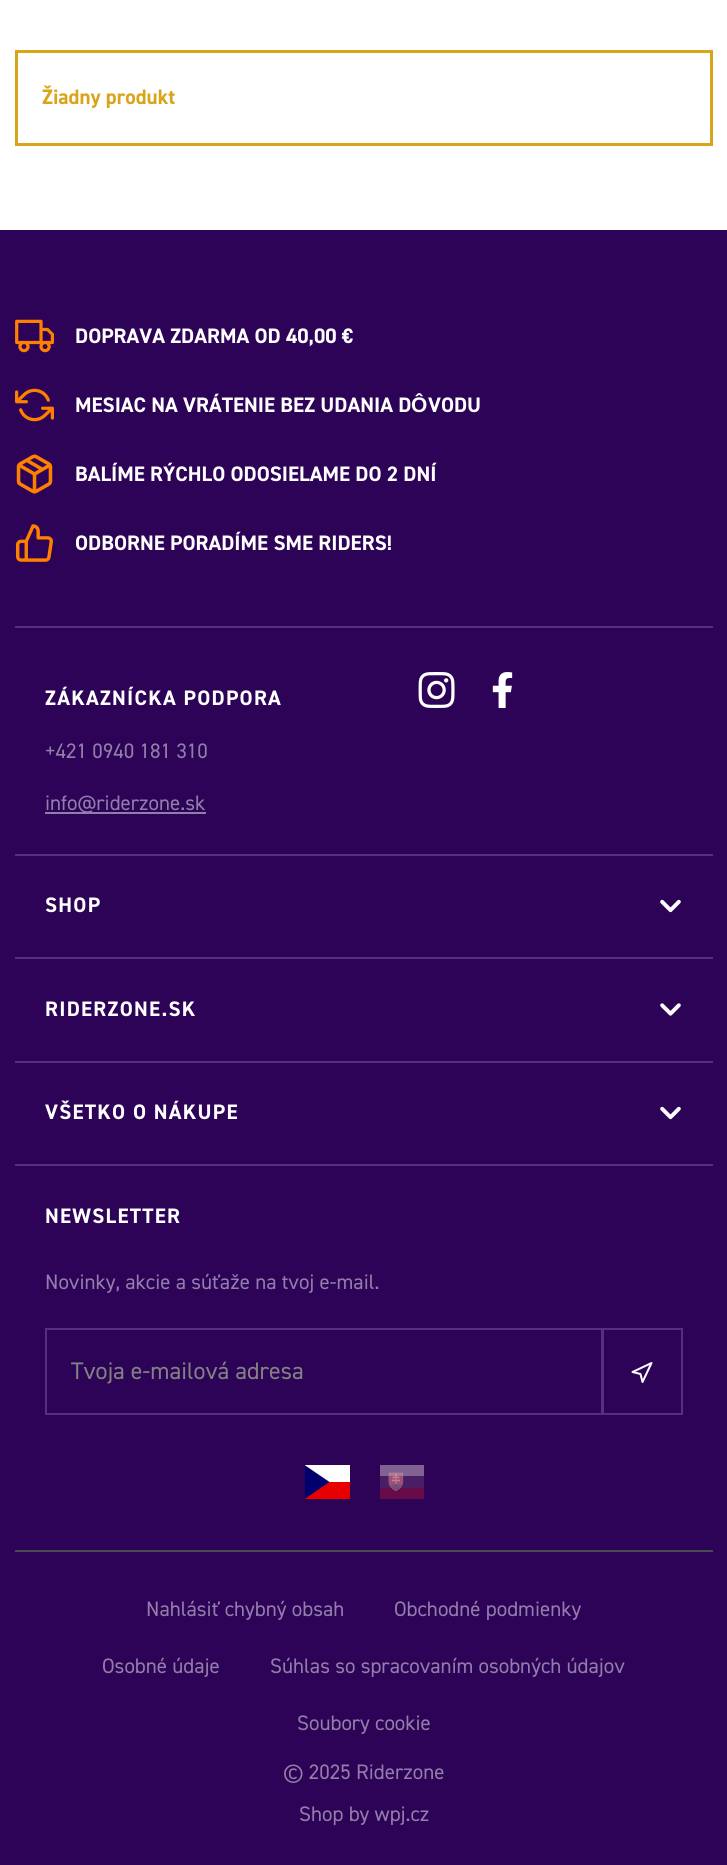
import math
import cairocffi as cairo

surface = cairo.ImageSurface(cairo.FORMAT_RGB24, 727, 1865)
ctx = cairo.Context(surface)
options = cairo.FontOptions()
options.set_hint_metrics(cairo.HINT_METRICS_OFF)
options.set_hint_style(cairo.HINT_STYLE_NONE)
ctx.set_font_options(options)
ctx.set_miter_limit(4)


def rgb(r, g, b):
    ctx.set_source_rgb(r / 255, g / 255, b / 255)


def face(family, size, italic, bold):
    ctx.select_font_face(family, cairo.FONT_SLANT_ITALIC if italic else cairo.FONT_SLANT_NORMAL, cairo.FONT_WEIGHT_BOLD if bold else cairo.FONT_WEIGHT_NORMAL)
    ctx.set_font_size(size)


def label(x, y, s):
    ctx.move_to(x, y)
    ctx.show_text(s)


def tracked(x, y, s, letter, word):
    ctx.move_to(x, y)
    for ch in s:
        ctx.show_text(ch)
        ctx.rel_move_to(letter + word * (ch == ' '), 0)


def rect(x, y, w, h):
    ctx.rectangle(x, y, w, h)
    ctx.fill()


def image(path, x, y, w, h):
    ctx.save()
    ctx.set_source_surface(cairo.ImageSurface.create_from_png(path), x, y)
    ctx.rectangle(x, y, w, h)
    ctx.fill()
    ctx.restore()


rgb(255, 255, 255)
ctx.paint()
ctx.rectangle(16.5, 51.5, 695, 93)
rgb(216, 164, 25)
ctx.set_line_width(3)
ctx.stroke()
face('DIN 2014', 21, 0, 1)
label(42, 104, 'Žiadny produkt')
rgb(44, 3, 87)
rect(0, 230, 727, 1635)
image('image0.png', 15, 319, 39, 34)
rgb(255, 255, 255)
label(75, 343, 'DOPRAVA ZDARMA OD 40,00 €')
image('image1.png', 15, 388, 39, 34)
label(75, 412, 'MESIAC NA VRÁTENIE BEZ UDANIA D')
face('Liberation Sans', 21, 0, 1)
label(411, 412, 'Ô')
face('DIN 2014', 21, 0, 1)
label(428, 412, 'VODU')
image('image2.png', 16, 454, 37, 40)
label(75, 481, 'BALÍME RÝCHLO ODOSIELAME DO 2 DNÍ')
image('image3.png', 15, 524, 38, 38)
label(75, 550, 'ODBORNE PORADÍME SME RIDERS!')
rgb(86, 47, 128)
rect(15, 626, 698, 2)
rgb(255, 255, 255)
tracked(45, 705, 'ZÁKAZNÍCKA PODPORA', 1.25, 0)
face('DIN 2014', 21, 0, 0)
rgb(147, 125, 170)
label(45, 758, '+421 0940 181 310')
rect(45, 812, 161, 2)
label(45, 810, 'info@riderzone.sk')
image('image4.png', 418, 672, 37, 36)
image('image5.png', 492, 672, 21, 36)
rgb(86, 47, 128)
rect(15, 854, 698, 2)
rect(15, 957, 698, 2)
face('DIN 2014', 21, 0, 1)
rgb(255, 255, 255)
tracked(45, 912, 'SHOP', 1.25, 0)
image('image6.png', 660, 899, 21, 14)
rgb(86, 47, 128)
rect(15, 1061, 698, 2)
rgb(255, 255, 255)
tracked(45, 1016, 'RIDERZONE.SK', 1.25, 0)
image('image7.png', 660, 1003, 21, 13)
rgb(86, 47, 128)
rect(15, 1164, 698, 2)
rgb(255, 255, 255)
tracked(45, 1119, 'VŠETKO O NÁKUPE', 1.25, 0)
image('image6.png', 660, 1106, 21, 14)
tracked(45, 1223, 'NEWSLETTER', 1.25, 0)
face('DIN 2014', 21, 0, 0)
rgb(147, 125, 170)
label(45, 1289, 'Novinky, akcie a súťaže na tvoj e-mail.')
ctx.rectangle(46, 1329, 556, 85)
rgb(86, 47, 128)
ctx.set_line_width(2)
ctx.stroke()
ctx.save()
ctx.rectangle(71, 1355, 507, 31)
ctx.clip()
face('DIN 2014', 24, 0, 0)
rgb(130, 130, 130)
label(71, 1379, 'Tvoja e-mailová adresa')
ctx.restore()
ctx.rectangle(603, 1329, 79, 85)
ctx.stroke()
image('image8.png', 631, 1362, 22, 21)
rgb(255, 255, 255)
rect(305, 1465, 45, 17)
rgb(232, 0, 0)
rect(305, 1482, 45, 17)
ctx.save()
ctx.rectangle(305, 1460, 45, 45)
ctx.clip()
rgb(0, 0, 111)
ctx.set_fill_rule(cairo.FILL_RULE_EVEN_ODD)
ctx.new_path()
ctx.move_to(304.5, 1465)
ctx.line_to(329.5, 1482)
ctx.line_to(304.5, 1499)
ctx.close_path()
ctx.fill()
ctx.restore()
image('image9.png', 380, 1465, 44, 34)
rgb(75, 75, 75)
rect(15, 1550, 698, 2)
rgb(147, 125, 170)
label(146, 1616, 'Nahlásiť chybný obsah')
label(394, 1616, 'Obchodné podmienky')
label(102, 1673, 'Osobné údaje')
label(270, 1673, 'Súhlas so spracovaním osobných údajov')
label(297, 1730, 'Soubory cookie')
label(283, 1779, '© 2025 Riderzone')
label(299, 1821, 'Shop by wpj.cz')
surface.write_to_png('render.png')
